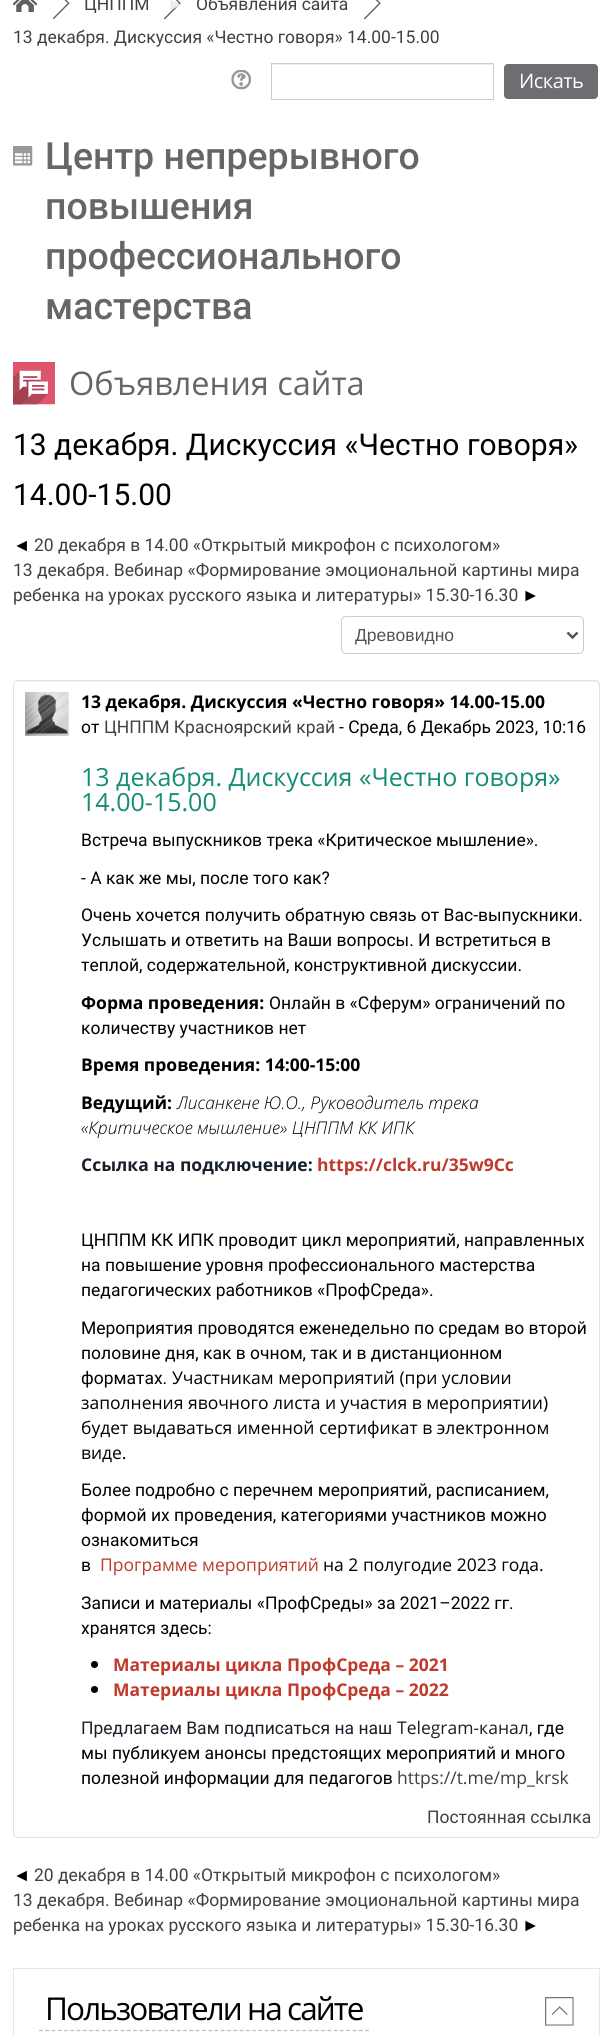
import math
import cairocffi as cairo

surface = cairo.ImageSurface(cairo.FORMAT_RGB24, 612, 2036)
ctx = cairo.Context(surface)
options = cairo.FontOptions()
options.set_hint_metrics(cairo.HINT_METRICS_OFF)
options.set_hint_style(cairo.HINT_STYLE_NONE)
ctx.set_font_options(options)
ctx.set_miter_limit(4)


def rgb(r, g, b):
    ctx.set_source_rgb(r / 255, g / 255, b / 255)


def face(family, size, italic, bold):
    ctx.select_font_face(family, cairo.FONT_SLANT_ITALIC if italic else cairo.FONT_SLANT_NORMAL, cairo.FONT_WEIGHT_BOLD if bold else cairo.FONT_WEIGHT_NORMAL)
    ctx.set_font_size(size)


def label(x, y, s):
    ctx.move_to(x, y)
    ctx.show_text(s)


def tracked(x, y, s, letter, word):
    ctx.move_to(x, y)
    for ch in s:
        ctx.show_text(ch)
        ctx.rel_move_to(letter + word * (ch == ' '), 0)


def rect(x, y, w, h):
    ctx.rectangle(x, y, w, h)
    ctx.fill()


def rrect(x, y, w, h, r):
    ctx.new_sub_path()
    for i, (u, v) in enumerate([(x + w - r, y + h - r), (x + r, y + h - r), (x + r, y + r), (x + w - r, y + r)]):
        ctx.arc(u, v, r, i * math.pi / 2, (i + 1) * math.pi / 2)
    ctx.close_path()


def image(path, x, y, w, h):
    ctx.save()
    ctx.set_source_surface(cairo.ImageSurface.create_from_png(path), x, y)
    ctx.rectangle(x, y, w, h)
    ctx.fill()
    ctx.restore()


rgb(255, 255, 255)
ctx.paint()
image('image0.png', 13, 0, 25, 12)
image('image1.png', 53, 0, 17, 20)
face('Roboto', 17.5, 0, 0)
rgb(64, 64, 64)
label(84, 10, 'ЦНППМ')
image('image2.png', 164, 0, 17, 20)
face('Liberation Sans', 17.5, 0, 0)
rgb(236, 236, 236)
label(167, 10, '►')
face('Roboto', 17.5, 0, 0)
rgb(64, 64, 64)
label(196, 10, 'Объявления сайта')
image('image2.png', 364, 0, 17, 20)
label(13, 43, '13 декабря. Дискуссия «Честно говоря» 14.00-15.00')
image('image3.png', 231, 70, 20, 20)
rgb(236, 236, 236)
rect(273, 64, 220, 1)
ctx.rectangle(271.5, 63.5, 222, 36)
rgb(204, 204, 204)
ctx.set_line_width(1)
ctx.stroke()
rgb(109, 110, 113)
rrect(504, 64, 94, 35, 4)
ctx.fill()
face('Open Sans', 20, 0, 0)
rgb(255, 255, 255)
tracked(519, 88, 'Искать', -0.5, 0)
image('image4.png', 13, 146, 20, 20)
face('Roboto Medium', 37.5, 0, 0)
rgb(102, 102, 102)
label(45, 169, 'Центр непрерывного')
label(45, 219, 'повышения')
label(45, 269, 'профессионального')
label(45, 319, 'мастерства')
image('image5.png', 13, 362, 42, 43)
face('Open Sans', 32.5, 0, 0)
label(69, 395, 'Объявления сайта')
face('Roboto', 30, 0, 0)
rgb(0, 0, 0)
label(13, 455, '13 декабря. Дискуссия «Честно говоря»')
label(13, 505, '14.00-15.00')
face('Liberation Sans', 17.5, 0, 0)
label(13, 551, '◄')
face('Roboto', 17.5, 0, 0)
rgb(64, 64, 64)
label(34, 551, '20 декабря в 14.00 «Открытый микрофон с психологом»')
label(13, 576, '13 декабря. Вебинар «Формирование эмоциональной картины мира')
label(13, 601, 'ребенка на уроках русского языка и литературы» 15.30-16.30')
face('Liberation Sans', 17.5, 0, 0)
rgb(0, 0, 0)
label(522, 601, '►')
rrect(341.5, 616.5, 242, 37, 4.5)
rgb(204, 204, 204)
ctx.stroke()
ctx.new_path()
ctx.move_to(567.5, 632.5)
ctx.line_to(572.5, 637.5)
ctx.line_to(577.5, 632.5)
rgb(85, 85, 85)
ctx.set_line_width(2.5)
ctx.stroke()
label(355, 641, 'Древовидно')
rgb(242, 242, 242)
ctx.new_path()
ctx.move_to(18, 682)
ctx.line_to(595, 682)
ctx.curve_to(597, 682, 599, 684, 599, 686)
ctx.line_to(599, 685)
ctx.curve_to(599, 683, 597, 681, 595, 681)
ctx.line_to(18, 681)
ctx.curve_to(16, 681, 14, 683, 14, 685)
ctx.line_to(14, 686)
ctx.curve_to(14, 684, 15, 682, 18, 682)
ctx.close_path()
ctx.fill()
rrect(13.5, 680.5, 586, 1157, 4.5)
rgb(227, 227, 227)
ctx.set_line_width(1)
ctx.stroke()
image('image6.png', 25, 692, 44, 44)
face('Open Sans', 17.5, 0, 1)
rgb(0, 0, 0)
label(81, 708, '13 декабря. Дискуссия «Честно говоря» 14.00-15.00')
face('Roboto', 17.5, 0, 0)
label(81, 733, 'от')
rgb(64, 64, 64)
label(104, 733, 'ЦНППМ Красноярский край')
rgb(0, 0, 0)
label(339, 733, '- Среда, 6 Декабрь 2023, 10:16')
face('Open Sans', 25, 0, 0)
rgb(19, 141, 117)
label(81, 786, '13 декабря. Дискуссия «Честно говоря»')
label(81, 811, '14.00-15.00')
face('Roboto', 17.5, 0, 0)
rgb(0, 0, 0)
label(81, 846, 'Встреча выпускников трека «Критическое мышление».')
label(81, 884, '- А как же мы, после того как?')
label(81, 921, 'Очень хочется получить обратную связь от Вас-выпускники.')
label(81, 946, 'Услышать и ответить на Ваши вопросы. И встретиться в')
label(81, 971, 'теплой, содержательной, конструктивной дискуссии.')
face('Open Sans', 17.5, 0, 1)
label(81, 1009, 'Форма проведения:')
face('Roboto', 17.5, 0, 0)
label(269, 1009, 'Онлайн в «Сферум» ограничений по')
label(81, 1034, 'количеству участников нет')
face('Open Sans', 17.5, 0, 1)
label(81, 1071, 'Время проведения: 14:00-15:00')
label(81, 1109, 'Ведущий:')
face('Open Sans Light', 17.5, 1, 0)
label(177, 1109, 'Лисанкене Ю.О., Руководитель трека')
label(81, 1134, '«Критическое мышление» ЦНППМ КК ИПК')
face('Open Sans', 17.5, 0, 1)
rgb(23, 32, 42)
label(81, 1171, 'Ссылка на подключение:')
rgb(192, 57, 43)
label(317, 1171, 'https://clck.ru/35w9Cc')
face('Roboto', 17.5, 0, 0)
rgb(0, 0, 0)
label(81, 1246, 'ЦНППМ КК ИПК проводит цикл мероприятий, направленных')
label(81, 1271, 'на повышение уровня профессионального мастерства')
label(81, 1296, 'педагогических работников «ПрофСреда».')
label(81, 1334, 'Мероприятия проводятся еженедельно по средам во второй')
label(81, 1359, 'половине дня, как в очном, так и в дистанционном')
label(81, 1384, 'форматах.')
face('Open Sans', 17.5, 0, 0)
label(172, 1384, 'Участникам мероприятий (при условии')
label(81, 1409, 'заполнения явочного листа и участия в мероприятии)')
label(81, 1434, 'будет выдаваться именной сертификат в электронном')
label(81, 1459, 'виде.')
face('Roboto', 17.5, 0, 0)
label(81, 1496, 'Более подробно с перечнем мероприятий, расписанием,')
label(81, 1521, 'формой их проведения, категориями участников можно')
label(81, 1546, 'ознакомиться')
label(81, 1571, 'в')
face('Open Sans', 17.5, 0, 0)
rgb(192, 57, 43)
label(100, 1571, 'Программе мероприятий')
rgb(0, 0, 0)
label(323, 1571, 'на 2 полугодие 2023 года.')
face('Roboto', 17.5, 0, 0)
label(81, 1609, 'Записи и материалы «ПрофСреды» за 2021–2022 гг.')
label(81, 1634, 'хранятся здесь:')
ctx.new_path()
ctx.arc(94.5, 1664.5, 3.5, 0, 2 * math.pi)
ctx.fill()
face('Open Sans', 17.5, 0, 1)
rgb(192, 57, 43)
label(113, 1671, 'Материалы цикла ПрофСреда – 2021')
rgb(0, 0, 0)
ctx.new_path()
ctx.arc(94.5, 1689.5, 3.5, 0, 2 * math.pi)
ctx.fill()
rgb(192, 57, 43)
label(113, 1696, 'Материалы цикла ПрофСреда – 2022')
face('Roboto', 17.5, 0, 0)
rgb(23, 32, 42)
label(81, 1734, 'Предлагаем Вам подписаться на наш')
face('Open Sans', 17.5, 0, 0)
label(397, 1734, 'Telegram-канал')
face('Roboto', 17.5, 0, 0)
rgb(0, 0, 0)
label(529, 1734, ', где')
label(81, 1759, 'мы публикуем анонсы предстоящих мероприятий и много')
label(81, 1784, 'полезной информации для педагогов')
face('Open Sans', 17.5, 0, 0)
rgb(64, 64, 64)
label(397, 1784, 'https://t.me/mp_krsk')
face('Roboto', 17.5, 0, 0)
label(427, 1823, 'Постоянная ссылка')
face('Liberation Sans', 17.5, 0, 0)
rgb(0, 0, 0)
label(13, 1881, '◄')
face('Roboto', 17.5, 0, 0)
rgb(64, 64, 64)
label(34, 1881, '20 декабря в 14.00 «Открытый микрофон с психологом»')
label(13, 1906, '13 декабря. Вебинар «Формирование эмоциональной картины мира')
label(13, 1931, 'ребенка на уроках русского языка и литературы» 15.30-16.30')
face('Liberation Sans', 17.5, 0, 0)
rgb(0, 0, 0)
label(522, 1931, '►')
ctx.rectangle(13.5, 1968.5, 586, 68)
rgb(231, 231, 231)
ctx.stroke()
ctx.new_path()
ctx.move_to(39, 2030.5)
ctx.line_to(369, 2030.5)
rgb(187, 187, 187)
ctx.set_line_width(1.2)
ctx.set_dash([3.75, 2.52])
ctx.stroke()
face('Open Sans', 31.5, 0, 0)
rgb(0, 0, 0)
tracked(45, 2020, 'Пользователи на сайте', -1.9, 0)
image('image7.png', 545, 1997, 29, 29)
surface.write_to_png('render.png')
